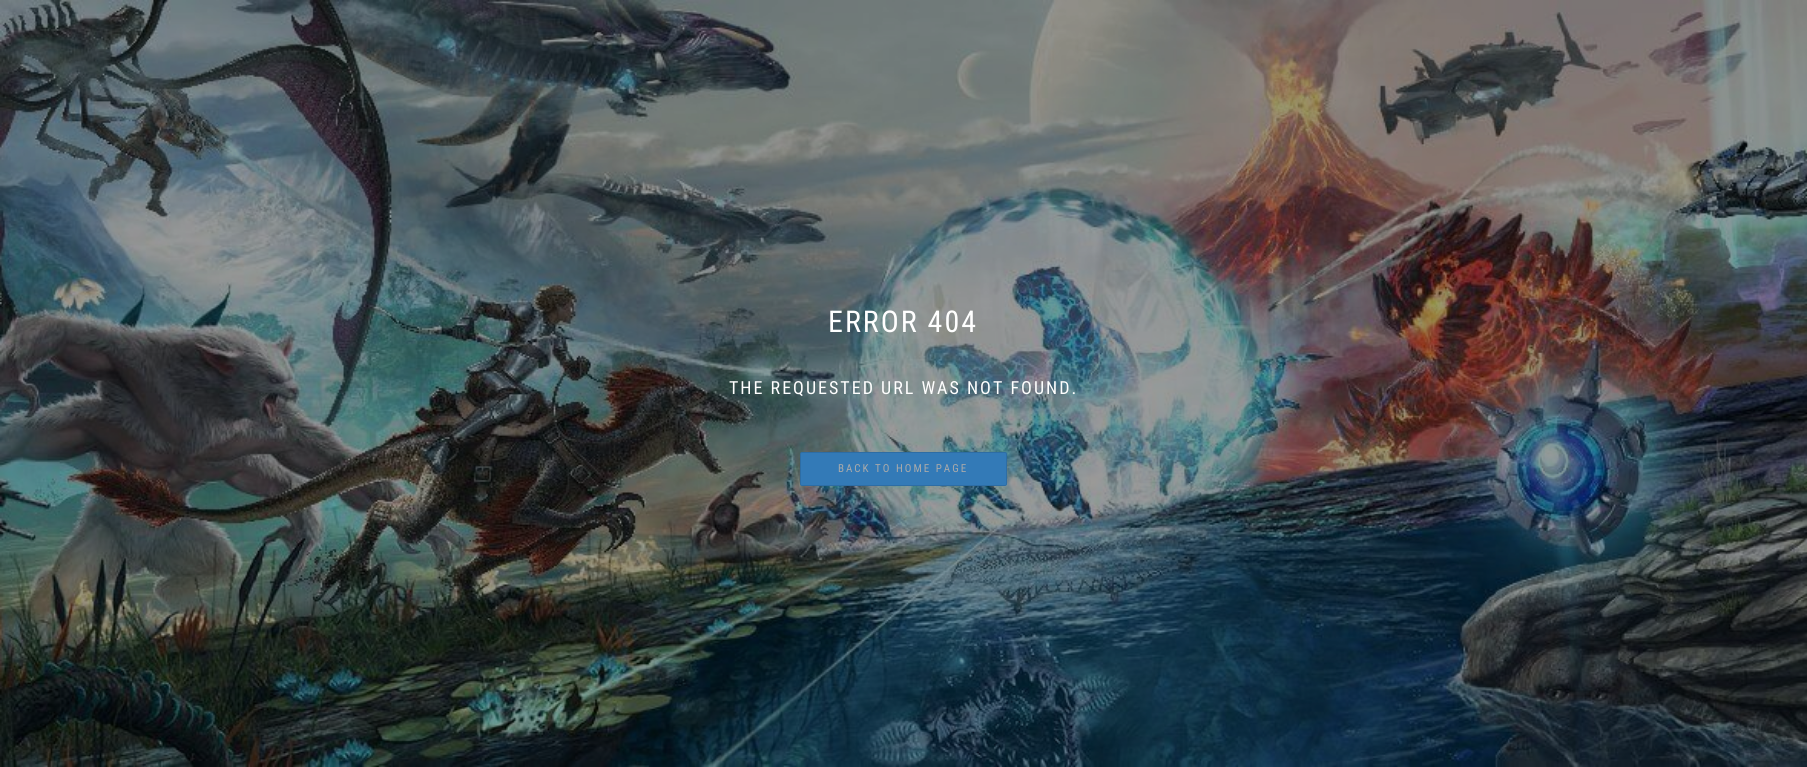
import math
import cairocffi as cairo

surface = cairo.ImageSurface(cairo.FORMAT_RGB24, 1807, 767)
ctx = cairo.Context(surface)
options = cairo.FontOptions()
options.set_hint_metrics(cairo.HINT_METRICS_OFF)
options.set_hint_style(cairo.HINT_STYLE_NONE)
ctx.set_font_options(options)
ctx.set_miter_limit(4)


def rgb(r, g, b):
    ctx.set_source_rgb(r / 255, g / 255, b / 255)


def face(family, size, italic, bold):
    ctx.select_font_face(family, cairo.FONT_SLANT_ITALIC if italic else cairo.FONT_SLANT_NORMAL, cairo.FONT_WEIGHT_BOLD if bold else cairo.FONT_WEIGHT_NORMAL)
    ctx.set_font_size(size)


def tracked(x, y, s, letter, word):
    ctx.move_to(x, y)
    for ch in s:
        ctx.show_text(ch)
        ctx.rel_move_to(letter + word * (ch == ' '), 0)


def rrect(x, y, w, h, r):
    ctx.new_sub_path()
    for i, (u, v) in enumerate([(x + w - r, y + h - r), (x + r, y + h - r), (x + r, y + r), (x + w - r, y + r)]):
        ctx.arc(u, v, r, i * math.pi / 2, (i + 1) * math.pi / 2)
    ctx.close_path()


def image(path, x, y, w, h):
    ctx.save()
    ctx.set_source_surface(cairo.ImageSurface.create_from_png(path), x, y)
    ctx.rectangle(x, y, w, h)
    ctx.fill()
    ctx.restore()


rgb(255, 255, 255)
ctx.paint()
image('image0.png', 0, 0, 1807, 767)
face('Roboto Condensed', 30, 0, 0)
rgb(255, 255, 255)
tracked(828, 332, 'ERROR 404', 2, 0)
face('Roboto Condensed', 18, 0, 0)
tracked(729, 394, 'THE REQUESTED URL WAS NOT FOUND.', 2, 0)
rgb(51, 122, 183)
rrect(800.5, 452.5, 206, 33, 1.5)
ctx.fill_preserve()
rgb(46, 109, 164)
ctx.set_line_width(1)
ctx.stroke()
face('Roboto Condensed', 11, 0, 0)
rgb(170, 170, 170)
tracked(838, 472, 'BACK TO HOME PAGE', 2, 0)
surface.write_to_png('render.png')
